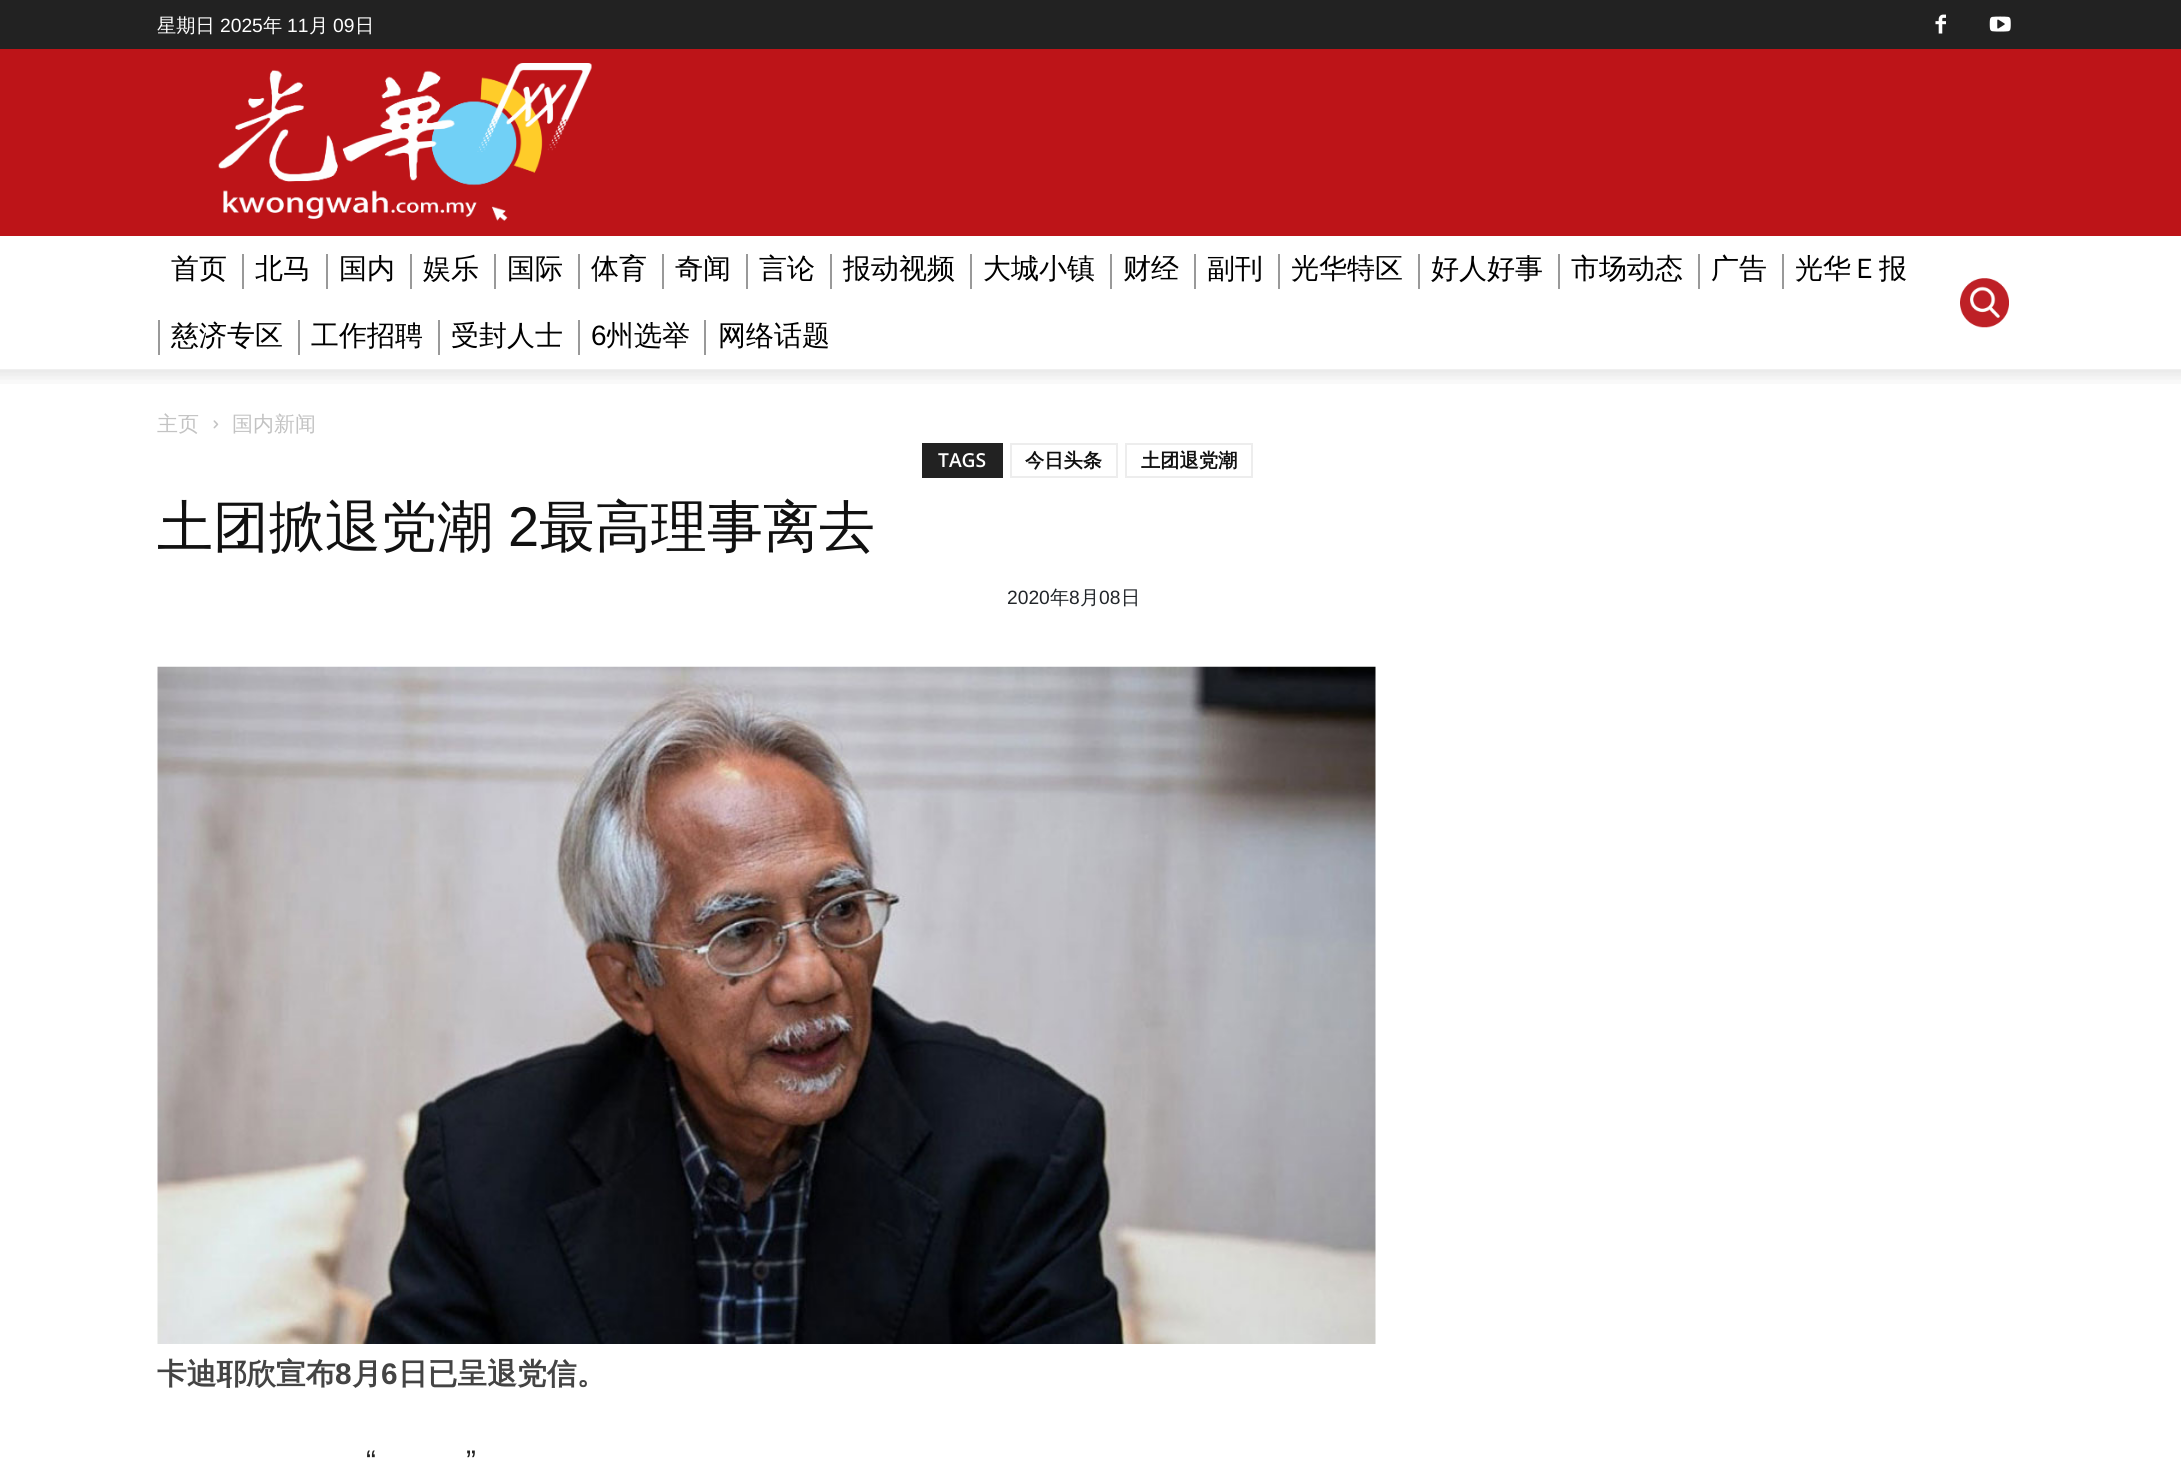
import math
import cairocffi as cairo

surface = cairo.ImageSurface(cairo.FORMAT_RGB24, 2181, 1459)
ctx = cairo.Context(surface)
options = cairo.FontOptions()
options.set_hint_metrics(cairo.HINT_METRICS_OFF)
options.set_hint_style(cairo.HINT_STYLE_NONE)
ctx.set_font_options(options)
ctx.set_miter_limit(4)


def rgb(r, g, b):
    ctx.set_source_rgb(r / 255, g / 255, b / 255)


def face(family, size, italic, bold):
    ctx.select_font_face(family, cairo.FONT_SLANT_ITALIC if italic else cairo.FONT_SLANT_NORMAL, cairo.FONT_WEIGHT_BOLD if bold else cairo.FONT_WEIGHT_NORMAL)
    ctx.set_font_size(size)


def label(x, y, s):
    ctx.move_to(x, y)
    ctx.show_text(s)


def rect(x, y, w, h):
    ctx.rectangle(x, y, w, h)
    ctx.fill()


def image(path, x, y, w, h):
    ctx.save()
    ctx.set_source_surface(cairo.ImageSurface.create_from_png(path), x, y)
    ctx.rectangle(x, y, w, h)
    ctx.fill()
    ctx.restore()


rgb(255, 255, 255)
ctx.paint()
rgb(34, 34, 34)
rect(0, 0, 2181, 49)
face('WenQuanYi Zen Hei Medium', 19.25, 0, 0)
rgb(255, 255, 255)
label(157, 32, '星期日')
face('Liberation Sans', 19.25, 0, 0)
label(220, 32, '2025')
face('WenQuanYi Zen Hei Medium', 19.25, 0, 0)
label(263, 32, '年')
face('Liberation Sans', 19.25, 0, 0)
label(287, 32, '11')
face('WenQuanYi Zen Hei Medium', 19.25, 0, 0)
label(309, 32, '月')
face('Liberation Sans', 19.25, 0, 0)
label(333, 32, '09')
face('WenQuanYi Zen Hei Medium', 19.25, 0, 0)
label(355, 32, '日')
image('image0.png', 1935, 14, 11, 20)
image('image1.png', 1989, 16, 22, 16)
rgb(189, 20, 24)
rect(0, 49, 2181, 187)
image('image2.png', 218, 63, 374, 158)
face('WenQuanYi Zen Hei Medium', 28, 0, 0)
rgb(0, 0, 0)
label(171, 278, '首页')
rgb(153, 153, 153)
rect(242, 254, 2, 35)
rgb(0, 0, 0)
label(255, 278, '北马')
rgb(153, 153, 153)
rect(326, 254, 2, 35)
rgb(0, 0, 0)
label(339, 278, '国内')
rgb(153, 153, 153)
rect(410, 254, 2, 35)
rgb(0, 0, 0)
label(423, 278, '娱乐')
rgb(153, 153, 153)
rect(494, 254, 2, 35)
rgb(0, 0, 0)
label(507, 278, '国际')
rgb(153, 153, 153)
rect(578, 254, 2, 35)
rgb(0, 0, 0)
label(591, 278, '体育')
rgb(153, 153, 153)
rect(662, 254, 2, 35)
rgb(0, 0, 0)
label(675, 278, '奇闻')
rgb(153, 153, 153)
rect(746, 254, 2, 35)
rgb(0, 0, 0)
label(759, 278, '言论')
rgb(153, 153, 153)
rect(830, 254, 2, 35)
rgb(0, 0, 0)
label(843, 278, '报动视频')
rgb(153, 153, 153)
rect(970, 254, 2, 35)
rgb(0, 0, 0)
label(983, 278, '大城小镇')
rgb(153, 153, 153)
rect(1110, 254, 2, 35)
rgb(0, 0, 0)
label(1123, 278, '财经')
rgb(153, 153, 153)
rect(1194, 254, 2, 35)
rgb(0, 0, 0)
label(1207, 278, '副刊')
rgb(153, 153, 153)
rect(1278, 254, 2, 35)
rgb(0, 0, 0)
label(1291, 278, '光华特区')
rgb(153, 153, 153)
rect(1418, 254, 2, 35)
rgb(0, 0, 0)
label(1431, 278, '好人好事')
rgb(153, 153, 153)
rect(1558, 254, 2, 35)
rgb(0, 0, 0)
label(1571, 278, '市场动态')
rgb(153, 153, 153)
rect(1698, 254, 2, 35)
rgb(0, 0, 0)
label(1711, 278, '广告')
rgb(153, 153, 153)
rect(1782, 254, 2, 35)
rgb(0, 0, 0)
label(1795, 278, '光华Ｅ报')
rgb(153, 153, 153)
rect(158, 320, 2, 35)
rgb(0, 0, 0)
label(171, 345, '慈济专区')
rgb(153, 153, 153)
rect(298, 320, 2, 35)
rgb(0, 0, 0)
label(311, 345, '工作招聘')
rgb(153, 153, 153)
rect(438, 320, 2, 35)
rgb(0, 0, 0)
label(451, 345, '受封人士')
rgb(153, 153, 153)
rect(578, 320, 2, 35)
face('Liberation Sans', 28, 0, 0)
rgb(0, 0, 0)
label(591, 345, '6')
face('WenQuanYi Zen Hei Medium', 28, 0, 0)
label(606, 345, '州选举')
rgb(153, 153, 153)
rect(704, 320, 2, 35)
rgb(0, 0, 0)
label(718, 345, '网络话题')
image('image3.png', 1960, 278, 49, 50)
image('image4.png', 0, 369, 2181, 15)
face('WenQuanYi Zen Hei Medium', 21, 0, 0)
rgb(195, 195, 195)
label(157, 431, '主页')
image('image5.png', 213, 420, 6, 9)
label(232, 431, '国内新闻')
rgb(34, 34, 34)
rect(922, 443, 81, 35)
face('Open Sans SemiBold', 19.25, 0, 0)
rgb(255, 255, 255)
label(938, 467, 'TAGS')
ctx.rectangle(1011, 444, 106, 33)
rgb(237, 237, 237)
ctx.stroke()
face('WenQuanYi Zen Hei', 19.25, 0, 1)
rgb(17, 17, 17)
label(1025, 467, '今日头条')
ctx.rectangle(1126, 444, 126, 33)
rgb(237, 237, 237)
ctx.stroke()
rgb(17, 17, 17)
label(1141, 467, '土团退党潮')
face('WenQuanYi Zen Hei Medium', 56, 0, 0)
label(157, 546, '土团掀退党潮')
face('Liberation Sans', 56, 0, 0)
label(508, 546, '2')
face('WenQuanYi Zen Hei Medium', 56, 0, 0)
label(539, 546, '最高理事离去')
face('Liberation Sans', 19.25, 0, 0)
rgb(33, 37, 41)
label(1007, 604, '2020')
face('WenQuanYi Zen Hei Medium', 19.25, 0, 0)
label(1050, 604, '年')
face('Liberation Sans', 19.25, 0, 0)
label(1069, 604, '8')
face('WenQuanYi Zen Hei Medium', 19.25, 0, 0)
label(1080, 604, '月')
face('Liberation Sans', 19.25, 0, 0)
label(1099, 604, '08')
face('WenQuanYi Zen Hei Medium', 19.25, 0, 0)
label(1121, 604, '日')
image('image6.png', 157, 666, 1219, 678)
face('WenQuanYi Zen Hei', 29.75, 0, 1)
rgb(68, 68, 68)
label(157, 1384, '卡迪耶欣宣布')
face('Liberation Sans', 29.75, 0, 1)
label(335, 1384, '8')
face('WenQuanYi Zen Hei', 29.75, 0, 1)
label(352, 1384, '月')
face('Liberation Sans', 29.75, 0, 1)
label(381, 1384, '6')
face('WenQuanYi Zen Hei', 29.75, 0, 1)
label(398, 1384, '日已呈退党信。')
face('Liberation Sans', 29.75, 0, 0)
rgb(34, 34, 34)
label(366, 1471, '“')
label(466, 1471, '”')
surface.write_to_png('render.png')
